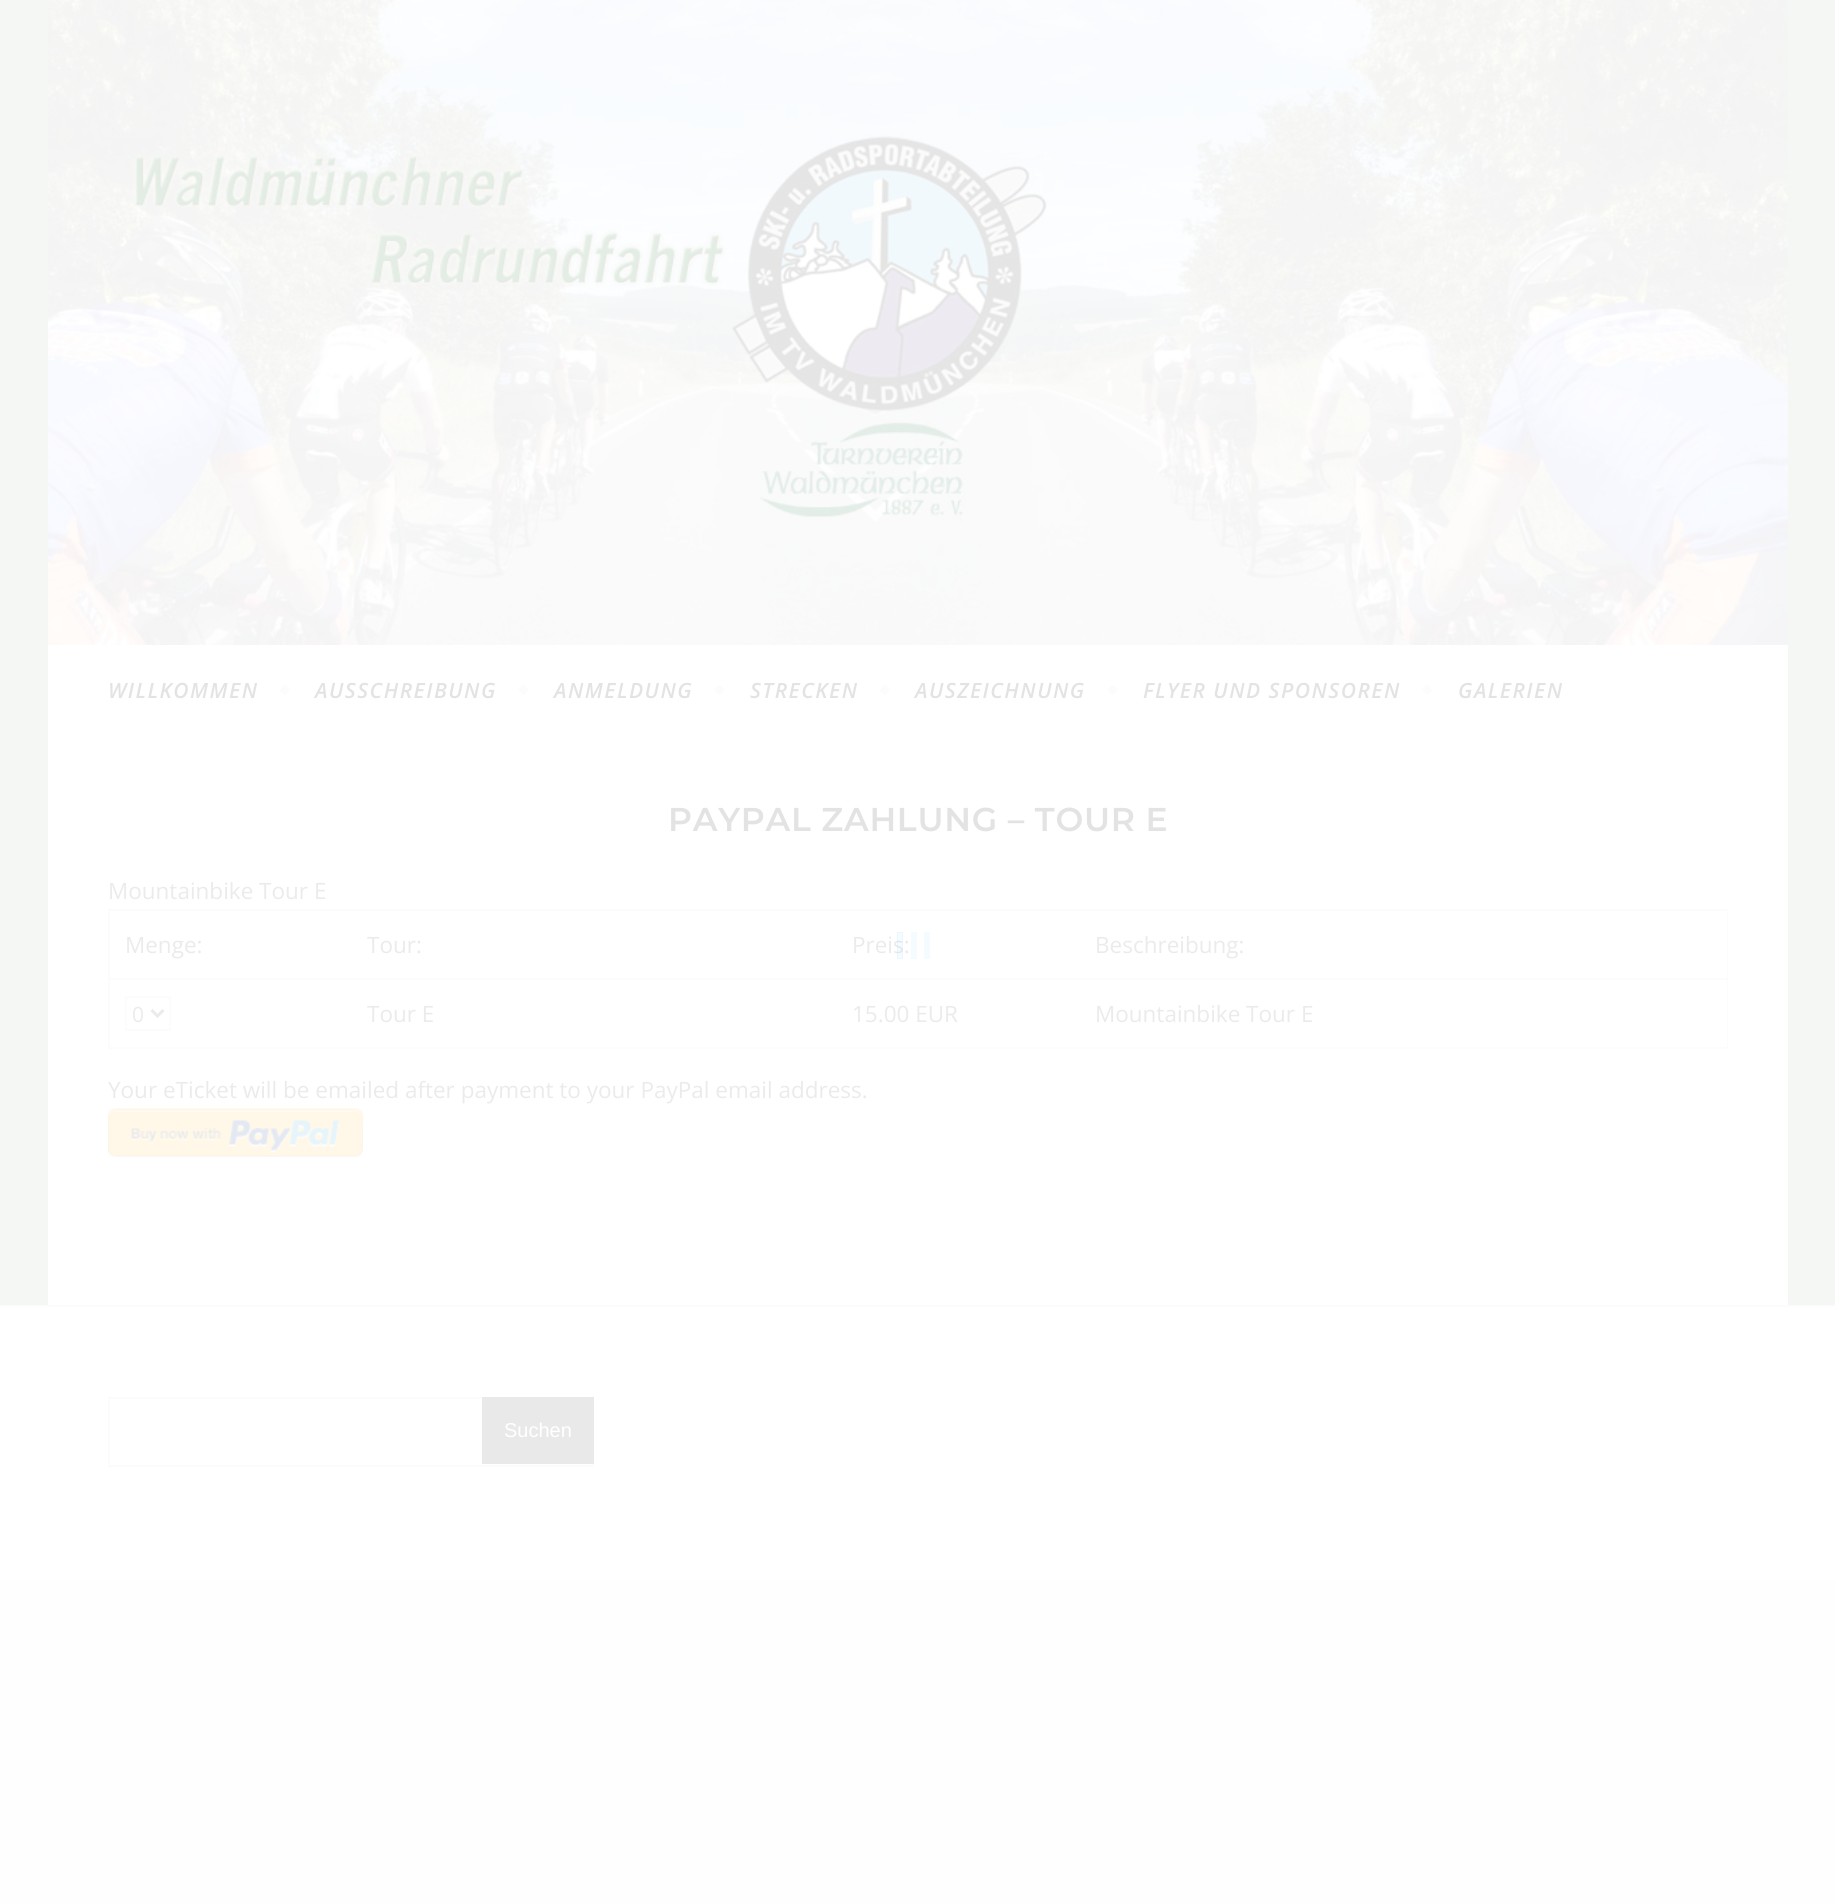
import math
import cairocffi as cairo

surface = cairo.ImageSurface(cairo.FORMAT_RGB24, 1835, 1904)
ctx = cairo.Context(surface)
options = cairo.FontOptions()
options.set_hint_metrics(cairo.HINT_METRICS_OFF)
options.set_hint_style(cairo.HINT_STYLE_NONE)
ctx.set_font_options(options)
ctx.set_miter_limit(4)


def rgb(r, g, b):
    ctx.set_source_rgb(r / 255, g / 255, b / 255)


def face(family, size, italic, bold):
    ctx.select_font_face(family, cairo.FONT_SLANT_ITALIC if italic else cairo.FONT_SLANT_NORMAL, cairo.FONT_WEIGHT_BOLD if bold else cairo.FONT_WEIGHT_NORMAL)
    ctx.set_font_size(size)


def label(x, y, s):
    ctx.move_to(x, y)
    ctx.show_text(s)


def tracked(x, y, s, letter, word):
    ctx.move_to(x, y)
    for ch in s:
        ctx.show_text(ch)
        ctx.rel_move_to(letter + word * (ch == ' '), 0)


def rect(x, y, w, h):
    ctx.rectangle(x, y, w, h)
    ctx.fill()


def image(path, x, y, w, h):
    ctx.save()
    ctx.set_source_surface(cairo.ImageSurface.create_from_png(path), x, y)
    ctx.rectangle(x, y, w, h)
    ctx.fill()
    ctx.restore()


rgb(245, 247, 244)
ctx.paint()
image('image0.png', 48, 0, 1740, 645)
rgb(255, 255, 255)
rect(48, 645, 1740, 660)
face('Open Sans SemiBold', 21, 1, 0)
rgb(227, 227, 227)
tracked(108, 698, 'WILLKOMMEN', 1.5, 0)
rgb(252, 252, 252)
ctx.new_path()
ctx.move_to(279.5, 690)
ctx.line_to(285, 684.5)
ctx.line_to(290, 690)
ctx.line_to(285, 695.5)
ctx.close_path()
ctx.fill()
rgb(227, 227, 227)
tracked(315, 698, 'AUSSCHREIBUNG', 1.5, 0)
rgb(252, 252, 252)
ctx.new_path()
ctx.move_to(518, 690)
ctx.line_to(523.5, 684.5)
ctx.line_to(529, 690)
ctx.line_to(523.5, 695.5)
ctx.close_path()
ctx.fill()
rgb(227, 227, 227)
tracked(554, 698, 'ANMELDUNG', 1.5, 0)
rgb(252, 252, 252)
ctx.new_path()
ctx.move_to(714, 690)
ctx.line_to(719.5, 684.5)
ctx.line_to(725, 690)
ctx.line_to(719.5, 695.5)
ctx.close_path()
ctx.fill()
rgb(227, 227, 227)
tracked(750, 698, 'STRECKEN', 1.5, 0)
rgb(252, 252, 252)
ctx.new_path()
ctx.move_to(879.5, 690)
ctx.line_to(885, 684.5)
ctx.line_to(890, 690)
ctx.line_to(885, 695.5)
ctx.close_path()
ctx.fill()
rgb(227, 227, 227)
tracked(915, 698, 'AUSZEICHNUNG', 1.5, 0)
rgb(252, 252, 252)
ctx.new_path()
ctx.move_to(1107, 690)
ctx.line_to(1112.5, 684.5)
ctx.line_to(1118, 690)
ctx.line_to(1112.5, 695.5)
ctx.close_path()
ctx.fill()
rgb(227, 227, 227)
tracked(1143, 698, 'FLYER UND SPONSOREN', 1.5, 0)
rgb(252, 252, 252)
ctx.new_path()
ctx.move_to(1422, 690)
ctx.line_to(1427, 684.5)
ctx.line_to(1432.5, 690)
ctx.line_to(1427, 695.5)
ctx.close_path()
ctx.fill()
rgb(227, 227, 227)
tracked(1458, 698, 'GALERIEN', 1.5, 0)
face('Montserrat SemiBold', 33, 0, 0)
tracked(668, 831, 'PAYPAL ZAHLUNG – TOUR E', 0.75, 0)
face('Open Sans', 22.5, 0, 0)
rgb(235, 235, 235)
label(108, 899, 'Mountainbike Tour E')
rgb(252, 252, 252)
rect(108, 909, 1620, 2)
rect(108, 978, 1620, 2)
rect(1727, 978, 1, 71)
rect(1727, 909, 1, 71)
rect(108, 1047, 1620, 2)
rect(108, 978, 2, 71)
rect(108, 909, 2, 71)
rgb(235, 235, 235)
label(125, 953, 'Menge:')
label(367, 953, 'Tour:')
label(852, 953, 'Preis:')
label(1095, 953, 'Beschreibung:')
ctx.rectangle(126, 997, 44, 33)
rgb(252, 252, 252)
ctx.stroke()
ctx.new_path()
ctx.move_to(151.5, 1010)
ctx.line_to(157.5, 1016)
ctx.line_to(163.5, 1010)
rgb(235, 235, 235)
ctx.set_line_width(3)
ctx.stroke()
face('Open Sans', 21, 0, 0)
label(132, 1022, '0')
face('Open Sans', 22.5, 0, 0)
label(367, 1022, 'Tour E')
label(852, 1022, '15.00 EUR')
label(1095, 1022, 'Mountainbike Tour E')
label(108, 1098, 'Your eTicket will be emailed after payment to your PayPal email address.')
image('image1.png', 108, 1108, 255, 49)
rgb(255, 255, 255)
rect(0, 1307, 1835, 273)
rgb(252, 252, 252)
rect(0, 1305, 1835, 2)
ctx.rectangle(109, 1398, 484, 68)
ctx.set_line_width(2)
ctx.stroke()
rgb(233, 233, 233)
rect(482, 1397, 112, 67)
face('Liberation Sans', 20, 0, 0)
rgb(255, 255, 255)
label(504, 1437, 'Suchen')
rgb(254, 254, 254)
rect(0, 1580, 1835, 324)
ctx.set_source_rgba(0, 0.663, 1, 0.04)
rect(897, 932, 6, 27)
ctx.rectangle(897.5, 932.5, 5, 26)
ctx.set_line_width(1)
ctx.stroke()
rgb(245, 252, 255)
rect(911, 932, 6, 27)
rect(924, 932, 6, 27)
surface.write_to_png('render.png')
